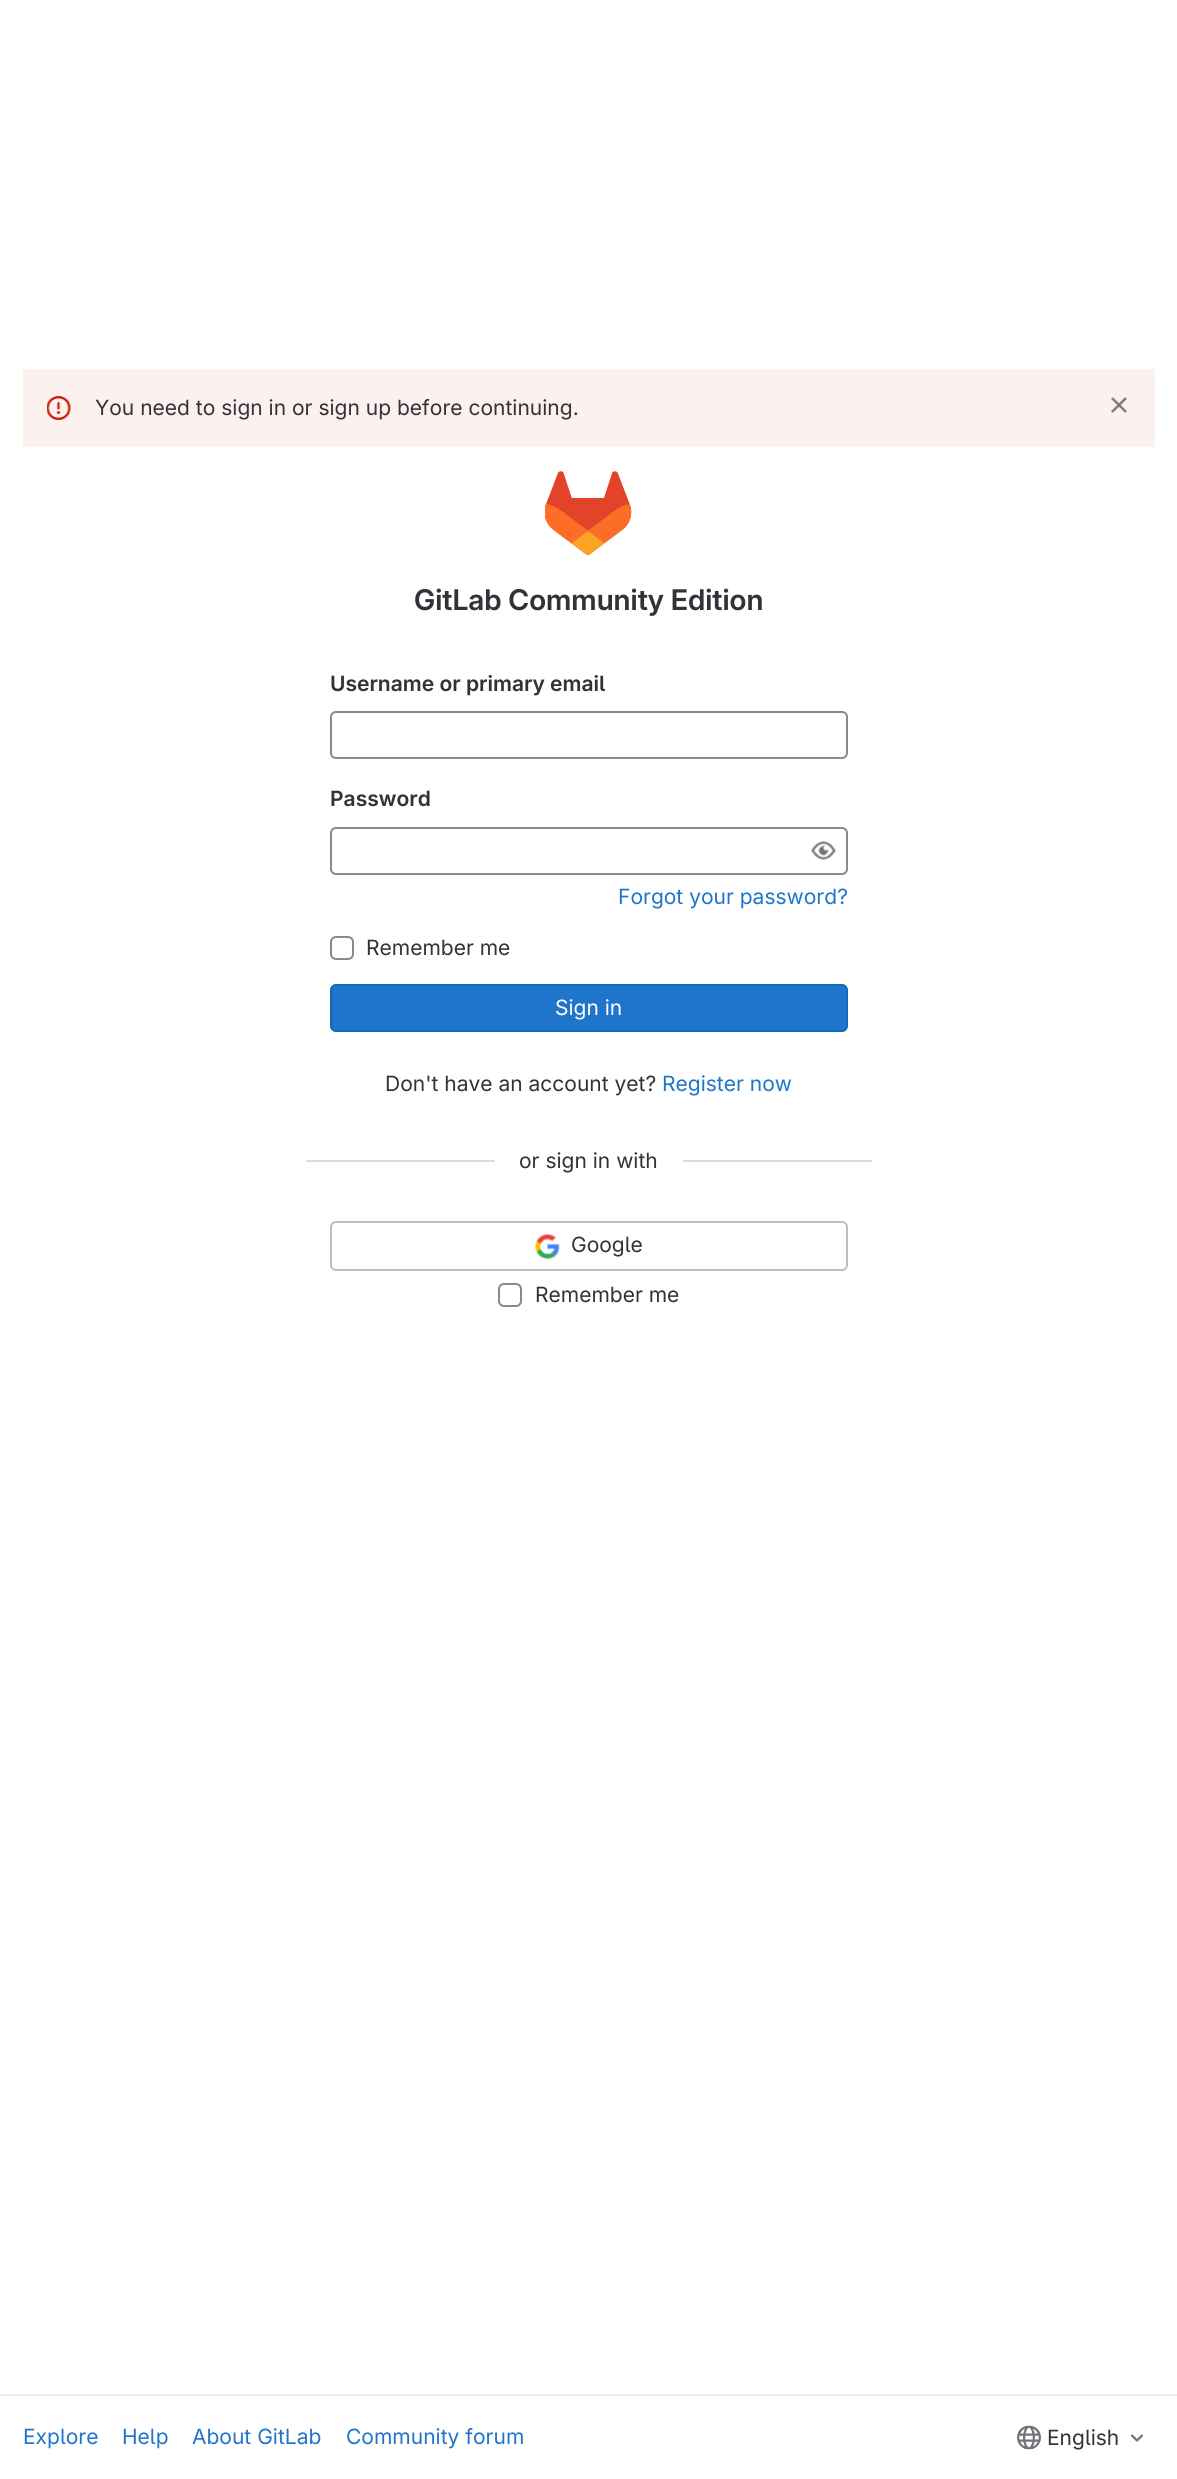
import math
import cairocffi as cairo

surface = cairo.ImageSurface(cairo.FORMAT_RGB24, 1177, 2479)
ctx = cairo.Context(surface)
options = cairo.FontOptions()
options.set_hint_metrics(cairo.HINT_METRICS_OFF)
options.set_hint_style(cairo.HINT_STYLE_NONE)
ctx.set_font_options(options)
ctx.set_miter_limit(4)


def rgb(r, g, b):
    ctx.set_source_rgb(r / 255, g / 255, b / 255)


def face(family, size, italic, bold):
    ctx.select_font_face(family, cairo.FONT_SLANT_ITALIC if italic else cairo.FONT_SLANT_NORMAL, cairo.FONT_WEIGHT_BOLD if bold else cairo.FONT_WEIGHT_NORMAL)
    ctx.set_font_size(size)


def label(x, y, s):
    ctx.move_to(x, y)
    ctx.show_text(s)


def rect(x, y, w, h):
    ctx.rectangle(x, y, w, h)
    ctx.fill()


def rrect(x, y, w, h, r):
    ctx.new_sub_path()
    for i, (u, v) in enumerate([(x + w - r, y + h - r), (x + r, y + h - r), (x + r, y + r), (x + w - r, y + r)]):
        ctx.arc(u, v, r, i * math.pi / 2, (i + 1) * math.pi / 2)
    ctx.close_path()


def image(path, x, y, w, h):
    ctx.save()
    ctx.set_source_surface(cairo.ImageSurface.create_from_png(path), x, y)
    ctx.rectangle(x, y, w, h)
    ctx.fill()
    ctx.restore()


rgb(255, 255, 255)
ctx.paint()
rgb(252, 241, 239)
rect(23, 369, 1132, 78)
image('image0.png', 47, 396, 24, 24)
face('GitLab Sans', 21, 0, 0)
rgb(51, 50, 56)
label(95, 415, 'You need to sign in or sign up before continuing.')
image('image1.png', 1111, 397, 16, 16)
image('image2.png', 545, 471, 87, 84)
face('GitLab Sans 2 SemiBold', 28.5, 0, 0)
label(414, 610, 'GitLab Community Edition')
face('GitLab Sans SemiBold', 21, 0, 0)
label(330, 691, 'Username or primary email')
rrect(331, 712, 516, 46, 5)
rgb(137, 136, 141)
ctx.stroke()
rgb(51, 50, 56)
label(330, 806, 'Password')
rrect(331, 828, 516, 46, 5)
rgb(137, 136, 141)
ctx.stroke()
image('image3.png', 811, 841, 25, 19)
face('GitLab Sans', 21, 0, 0)
rgb(31, 117, 203)
label(618, 904, 'Forgot your password?')
rrect(331, 937, 22, 22, 5)
rgb(137, 136, 141)
ctx.stroke()
rgb(51, 50, 56)
label(366, 955, 'Remember me')
rgb(31, 117, 203)
rrect(331, 985, 516, 46, 5)
ctx.fill_preserve()
rgb(16, 104, 191)
ctx.stroke()
rgb(255, 255, 255)
label(555, 1015, 'Sign in')
rgb(51, 50, 56)
label(385, 1091, 'Don\'t have an account yet?')
rgb(31, 117, 203)
label(662, 1091, 'Register now')
rgb(220, 220, 222)
rect(306, 1160, 189, 2)
rgb(51, 50, 56)
label(519, 1168, 'or sign in with')
rgb(220, 220, 222)
rect(683, 1160, 189, 2)
rrect(331, 1222, 516, 48, 5)
rgb(191, 191, 195)
ctx.stroke()
image('image4.png', 535, 1234, 25, 25)
rgb(51, 50, 56)
label(571, 1252, 'Google')
rrect(499, 1284, 22, 22, 5)
rgb(137, 136, 141)
ctx.stroke()
rgb(51, 50, 56)
label(535, 1302, 'Remember me')
rgb(236, 236, 239)
rect(0, 2394, 1177, 2)
rgb(31, 117, 203)
label(23, 2444, 'Explore')
label(122, 2444, 'Help')
label(192, 2444, 'About GitLab')
label(346, 2444, 'Community forum')
image('image5.png', 1017, 2425, 24, 25)
rgb(51, 50, 56)
label(1047, 2445, 'English')
image('image6.png', 1131, 2434, 12, 8)
surface.write_to_png('render.png')
